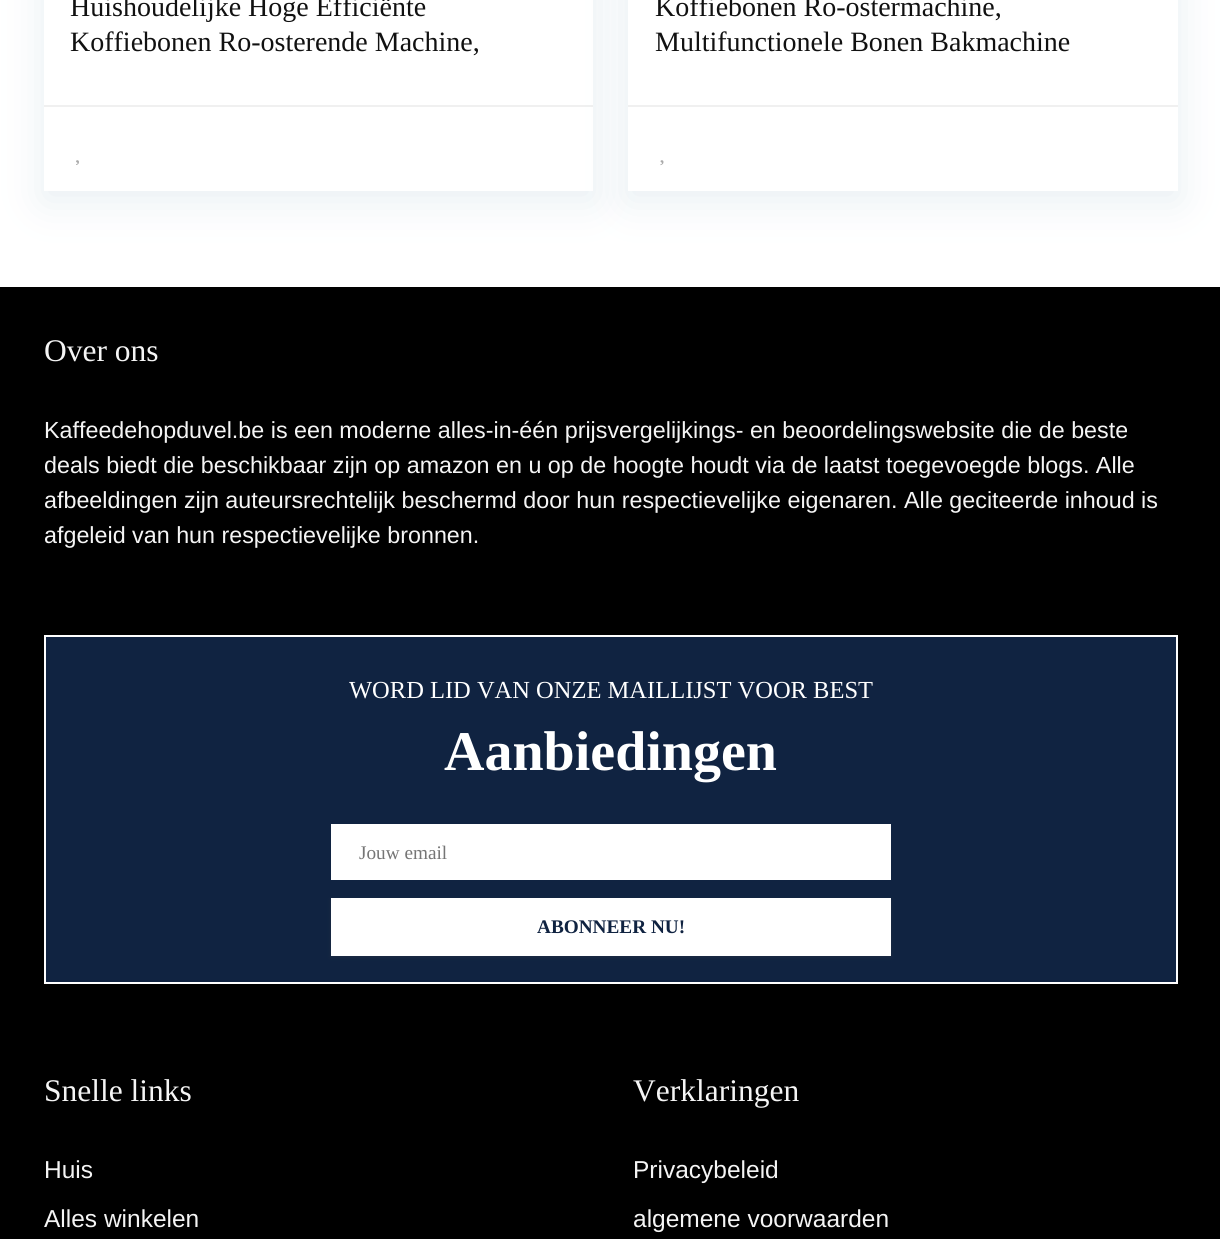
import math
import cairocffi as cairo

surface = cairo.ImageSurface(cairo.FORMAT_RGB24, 1220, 1239)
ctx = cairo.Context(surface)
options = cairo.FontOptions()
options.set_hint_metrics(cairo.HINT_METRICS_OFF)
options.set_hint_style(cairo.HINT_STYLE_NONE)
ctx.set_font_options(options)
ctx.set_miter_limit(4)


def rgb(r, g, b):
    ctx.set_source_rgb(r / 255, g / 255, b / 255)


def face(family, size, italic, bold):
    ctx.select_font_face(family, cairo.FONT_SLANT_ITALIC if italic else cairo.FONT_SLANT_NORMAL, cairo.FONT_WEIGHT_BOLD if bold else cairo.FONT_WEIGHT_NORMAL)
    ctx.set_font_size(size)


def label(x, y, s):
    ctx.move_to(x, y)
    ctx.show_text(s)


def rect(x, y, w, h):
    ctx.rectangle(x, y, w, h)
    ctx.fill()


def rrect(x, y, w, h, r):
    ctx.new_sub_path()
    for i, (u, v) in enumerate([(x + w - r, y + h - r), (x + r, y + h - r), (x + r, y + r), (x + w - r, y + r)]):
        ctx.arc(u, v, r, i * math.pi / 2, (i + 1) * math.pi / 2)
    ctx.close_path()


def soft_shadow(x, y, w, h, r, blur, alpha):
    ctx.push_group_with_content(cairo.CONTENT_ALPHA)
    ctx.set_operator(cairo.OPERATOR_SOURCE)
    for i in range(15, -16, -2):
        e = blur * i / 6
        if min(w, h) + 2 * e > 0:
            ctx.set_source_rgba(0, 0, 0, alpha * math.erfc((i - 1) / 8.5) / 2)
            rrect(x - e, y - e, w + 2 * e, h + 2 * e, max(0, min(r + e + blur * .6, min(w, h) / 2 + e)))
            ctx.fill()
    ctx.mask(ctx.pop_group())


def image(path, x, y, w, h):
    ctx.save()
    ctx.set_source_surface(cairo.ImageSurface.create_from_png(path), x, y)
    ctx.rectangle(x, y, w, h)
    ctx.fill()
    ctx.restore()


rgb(255, 255, 255)
ctx.paint()
rgb(188, 207, 219)
soft_shadow(44, -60, 549, 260, 0, 20, 0.35)
rgb(255, 255, 255)
rect(44, 0, 549, 191)
face('Liberation Serif', 28, 0, 0)
rgb(17, 17, 17)
label(70, 16, 'Huishoudelijke Hoge Efficiënte')
label(70, 51, 'Koffiebonen Ro-osterende Machine,')
rgb(240, 240, 240)
rect(44, 105, 549, 2)
image('image0.png', 76, 160, 3, 5)
rgb(188, 207, 219)
soft_shadow(628, -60, 550, 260, 0, 20, 0.35)
rgb(255, 255, 255)
rect(628, 0, 550, 191)
rgb(17, 17, 17)
label(655, 16, 'Koffiebonen Ro-ostermachine,')
label(655, 51, 'Multifunctionele Bonen Bakmachine')
rgb(240, 240, 240)
rect(628, 105, 550, 2)
image('image1.png', 660, 160, 4, 6)
rgb(0, 0, 0)
rect(0, 287, 1220, 952)
face('Liberation Serif', 31.5, 0, 0)
rgb(245, 245, 245)
label(44, 361, 'Over ons')
face('Liberation Sans', 23.3, 0, 0)
label(44, 438, 'Kaffeedehopduvel.be is een moderne alles-in-één prijsvergelijkings- en beoordelingswebsite die de beste')
label(44, 473, 'deals biedt die beschikbaar zijn op amazon en u op de hoogte houdt via de laatst toegevoegde blogs. Alle')
label(44, 508, 'afbeeldingen zijn auteursrechtelijk beschermd door hun respectievelijke eigenaren. Alle geciteerde inhoud is')
label(44, 543, 'afgeleid van hun respectievelijke bronnen.')
rgb(16, 35, 65)
ctx.rectangle(45, 636, 1132, 347)
ctx.fill_preserve()
rgb(255, 255, 255)
ctx.stroke()
face('Liberation Serif', 24.5, 0, 0)
label(349, 698, 'WORD LID VAN ONZE MAILLIJST VOOR BEST')
face('Liberation Serif', 56, 0, 1)
label(444, 770, 'Aanbiedingen')
rect(331, 824, 560, 56)
face('Liberation Serif', 19.25, 0, 0)
rgb(117, 117, 117)
label(359, 859, 'Jouw email')
rgb(60, 64, 67)
soft_shadow(331, 900, 560, 57, 0, 2, 0.3)
rgb(255, 255, 255)
rect(331, 898, 560, 58)
face('Liberation Serif', 19.25, 0, 1)
rgb(16, 35, 65)
label(537, 933, 'ABONNEER NU!')
face('Liberation Serif', 31.5, 0, 0)
rgb(245, 245, 245)
label(44, 1101, 'Snelle links')
face('Liberation Sans', 24.5, 0, 0)
label(44, 1178, 'Huis')
label(44, 1227, 'Alles winkelen')
face('Liberation Serif', 31.5, 0, 0)
label(633, 1101, 'Verklaringen')
face('Liberation Sans', 24.5, 0, 0)
label(633, 1178, 'Privacybeleid')
label(633, 1227, 'algemene voorwaarden')
surface.write_to_png('render.png')
